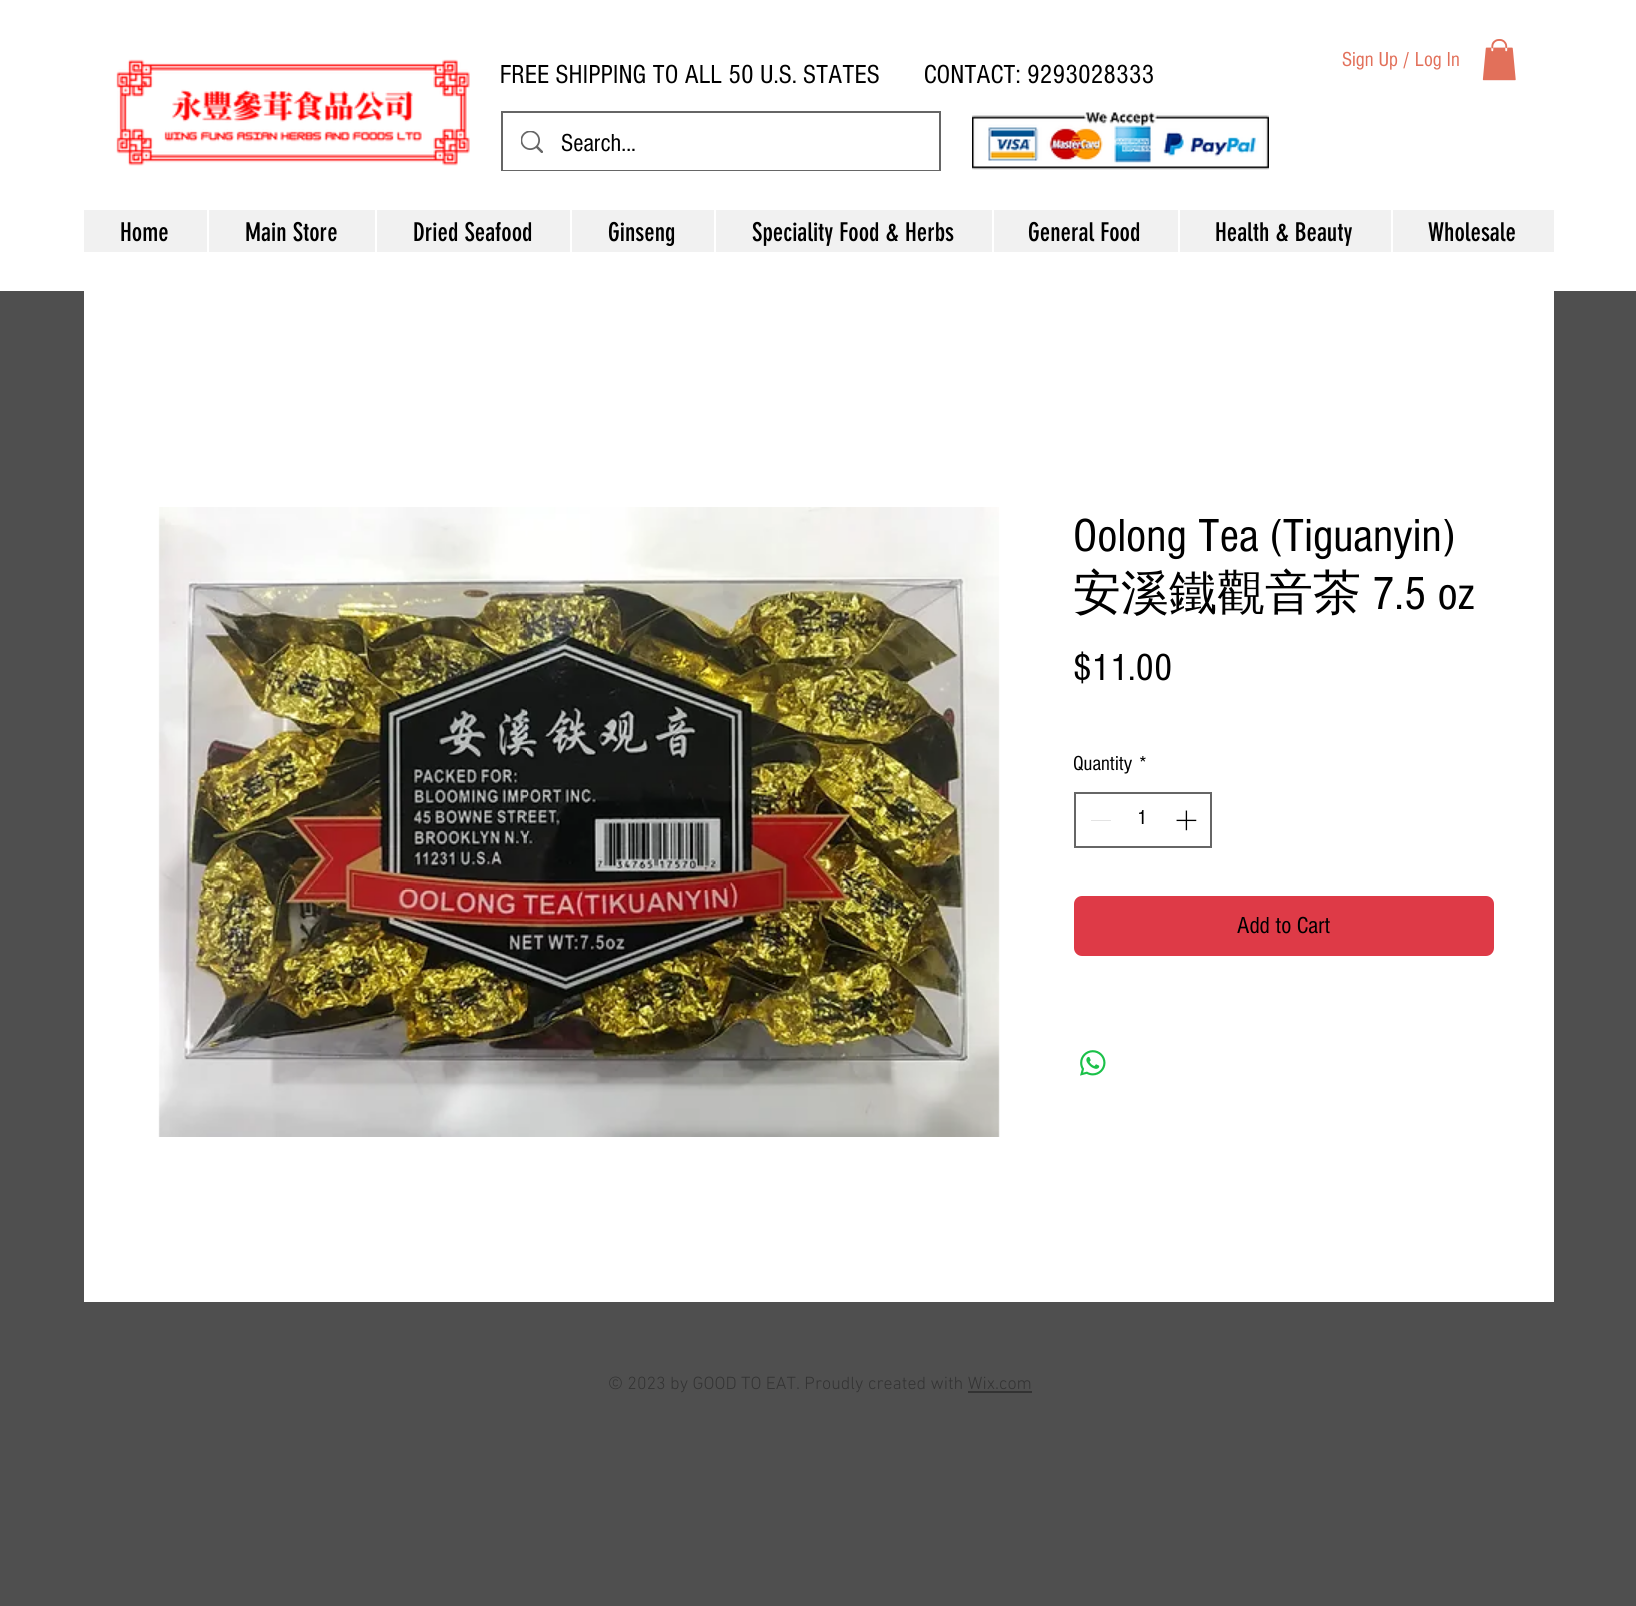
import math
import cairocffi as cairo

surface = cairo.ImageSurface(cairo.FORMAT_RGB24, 1636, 1606)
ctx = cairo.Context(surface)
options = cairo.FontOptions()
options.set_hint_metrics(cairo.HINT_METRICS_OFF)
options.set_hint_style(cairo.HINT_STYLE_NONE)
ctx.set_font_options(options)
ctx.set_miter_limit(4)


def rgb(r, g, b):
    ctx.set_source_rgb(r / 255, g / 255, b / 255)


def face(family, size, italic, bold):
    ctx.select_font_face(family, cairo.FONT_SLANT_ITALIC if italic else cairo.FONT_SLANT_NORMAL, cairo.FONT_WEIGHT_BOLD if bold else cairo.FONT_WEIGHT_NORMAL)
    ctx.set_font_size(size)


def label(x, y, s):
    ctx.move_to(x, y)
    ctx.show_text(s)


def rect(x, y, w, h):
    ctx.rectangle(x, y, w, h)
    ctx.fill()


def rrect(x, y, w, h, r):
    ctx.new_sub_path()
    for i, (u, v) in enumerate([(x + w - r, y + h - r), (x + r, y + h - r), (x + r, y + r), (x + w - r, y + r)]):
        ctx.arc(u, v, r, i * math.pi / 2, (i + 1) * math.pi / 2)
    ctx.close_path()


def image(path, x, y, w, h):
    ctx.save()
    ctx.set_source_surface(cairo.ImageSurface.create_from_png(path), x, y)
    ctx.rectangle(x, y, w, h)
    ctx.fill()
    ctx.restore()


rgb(79, 79, 79)
ctx.paint()
rgb(255, 255, 255)
rect(0, 0, 1636, 291)
image('image0.png', 116, 59, 354, 107)
face('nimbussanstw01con', 27, 0, 0)
rgb(0, 0, 0)
label(500, 83, 'FREE SHIPPING TO ALL 50 U.S. STATES       CONTACT: 9293028333')
face('nimbussanstw01con', 21, 0, 0)
rgb(226, 112, 90)
label(1342, 66, 'Sign Up / Log In')
image('image1.png', 1482, 39, 34, 42)
ctx.rectangle(502, 112, 438, 58)
rgb(102, 102, 102)
ctx.stroke()
rgb(255, 255, 255)
rect(503, 169, 436, 1)
image('image2.png', 521, 131, 22, 22)
face('nimbussanstw01con', 25.5, 0, 0)
rgb(0, 0, 0)
label(561, 151, 'Search...')
image('image3.png', 972, 111, 297, 59)
rgb(241, 241, 241)
rect(84, 210, 1470, 42)
face('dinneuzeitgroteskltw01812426', 25.5, 0, 0)
rgb(0, 0, 0)
label(120, 241, 'Home')
rgb(255, 255, 255)
rect(207, 210, 2, 42)
rgb(0, 0, 0)
label(245, 241, 'Main Store')
rgb(255, 255, 255)
rect(375, 210, 2, 42)
rgb(0, 0, 0)
label(413, 241, 'Dried Seafood')
rgb(255, 255, 255)
rect(570, 210, 2, 42)
rgb(0, 0, 0)
label(608, 241, 'Ginseng')
rgb(255, 255, 255)
rect(714, 210, 2, 42)
rgb(0, 0, 0)
label(752, 241, 'Speciality Food & Herbs')
rgb(255, 255, 255)
rect(992, 210, 2, 42)
rgb(0, 0, 0)
label(1028, 241, 'General Food')
rgb(255, 255, 255)
rect(1178, 210, 2, 42)
rgb(0, 0, 0)
label(1215, 241, 'Health & Beauty')
rgb(255, 255, 255)
rect(1391, 210, 2, 42)
rgb(0, 0, 0)
label(1428, 241, 'Wholesale')
rgb(255, 255, 255)
rect(84, 291, 1470, 1011)
image('image4.png', 158, 507, 842, 630)
face('nimbussanstw01con', 48, 0, 0)
rgb(0, 0, 0)
label(1073, 551, 'Oolong Tea (Tiguanyin)')
face('WenQuanYi Zen Hei Medium', 48, 0, 0)
label(1073, 609, '安溪鐵觀音茶')
face('nimbussanstw01con', 48, 0, 0)
label(1372, 609, '7.5 oz')
face('nimbussanstw01con', 39, 0, 0)
label(1073, 680, '$11.00')
face('nimbussanstw01con', 21, 0, 0)
label(1073, 770, 'Quantity')
label(1139, 770, '*')
ctx.rectangle(1075, 793, 136, 54)
rgb(102, 102, 102)
ctx.stroke()
rgb(227, 227, 227)
rect(1091, 820, 20, 1)
rgb(0, 0, 0)
label(1137, 824, '1')
image('image5.png', 1176, 810, 21, 21)
rgb(222, 58, 71)
rrect(1074, 896, 420, 60, 8)
ctx.fill()
face('nimbussanstw01con', 24, 0, 0)
rgb(0, 0, 0)
label(1237, 933, 'Add to Cart')
image('image6.png', 1080, 1050, 26, 26)
face('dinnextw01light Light', 18, 0, 0)
rgb(51, 51, 51)
label(608, 1389, '© 2023 by GOOD TO EAT. Proudly created with Wix.com')
rect(968, 1391, 64, 2)
surface.write_to_png('render.png')
